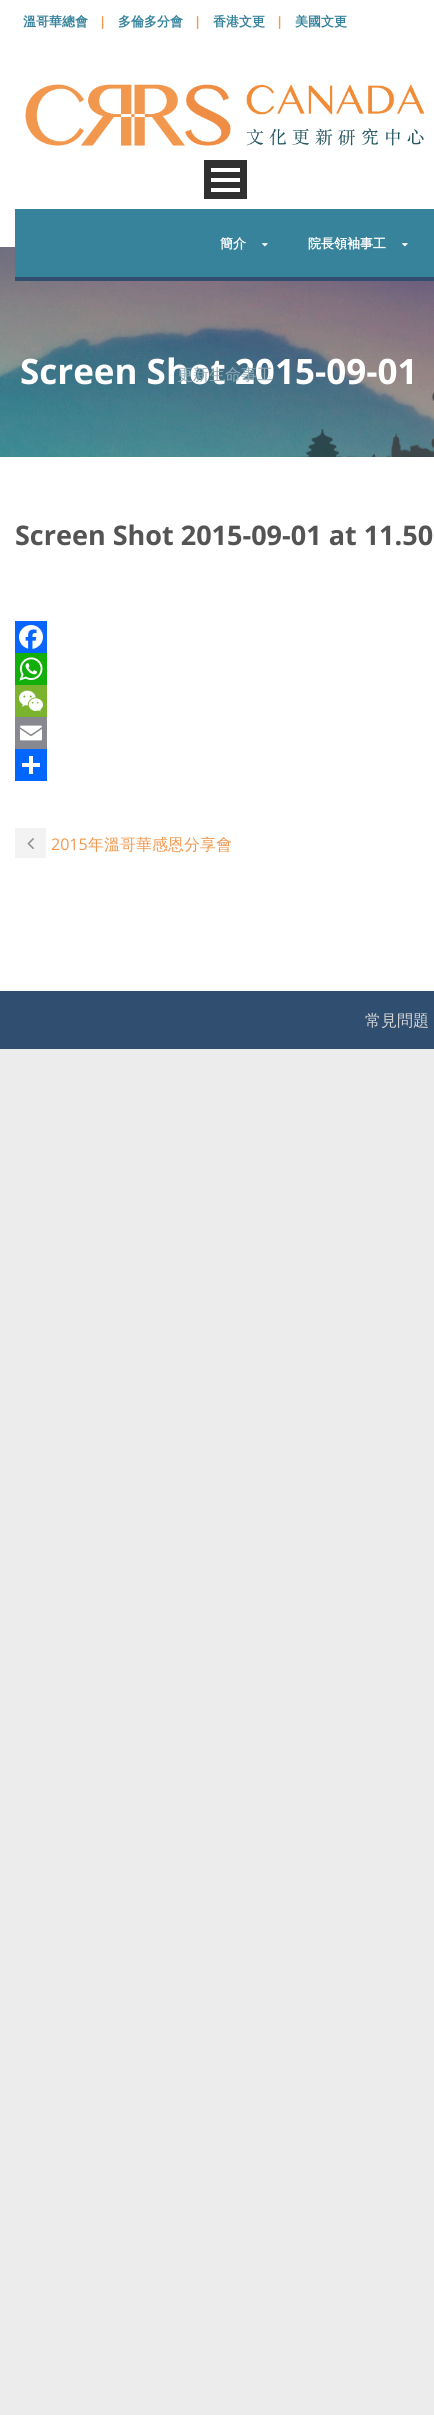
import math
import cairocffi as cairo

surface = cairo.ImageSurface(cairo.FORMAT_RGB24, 434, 2415)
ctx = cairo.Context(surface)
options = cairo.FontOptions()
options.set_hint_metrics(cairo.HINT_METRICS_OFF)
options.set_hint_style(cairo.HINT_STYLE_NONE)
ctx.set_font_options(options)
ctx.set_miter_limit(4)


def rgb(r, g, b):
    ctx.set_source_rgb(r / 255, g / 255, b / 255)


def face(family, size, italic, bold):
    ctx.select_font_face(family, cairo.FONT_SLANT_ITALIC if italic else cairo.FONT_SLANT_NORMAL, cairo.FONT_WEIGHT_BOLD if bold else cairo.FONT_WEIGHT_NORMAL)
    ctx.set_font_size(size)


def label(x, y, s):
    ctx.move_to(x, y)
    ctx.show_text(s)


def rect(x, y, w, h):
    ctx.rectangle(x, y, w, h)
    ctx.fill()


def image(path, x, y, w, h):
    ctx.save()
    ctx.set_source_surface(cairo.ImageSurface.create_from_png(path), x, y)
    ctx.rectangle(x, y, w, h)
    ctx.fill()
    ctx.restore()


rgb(236, 236, 236)
ctx.paint()
rgb(255, 255, 255)
rect(0, 0, 434, 991)
face('WenQuanYi Zen Hei', 13, 0, 1)
rgb(55, 131, 156)
label(23, 26, '溫哥華總會')
face('Open Sans', 13, 0, 1)
rgb(242, 152, 78)
label(99, 26, '|')
face('WenQuanYi Zen Hei', 13, 0, 1)
rgb(55, 131, 156)
label(118, 26, '多倫多分會')
face('Open Sans', 13, 0, 1)
rgb(242, 152, 78)
label(194, 26, '|')
face('WenQuanYi Zen Hei', 13, 0, 1)
rgb(55, 131, 156)
label(213, 26, '香港文更')
face('Open Sans', 13, 0, 1)
rgb(242, 152, 78)
label(276, 26, '|')
face('WenQuanYi Zen Hei', 13, 0, 1)
rgb(55, 131, 156)
label(295, 26, '美國文更')
image('image1.png', 0, 247, 434, 210)
rect(15, 209, 419, 68)
rgb(48, 78, 112)
rect(15, 277, 419, 4)
rgb(255, 255, 255)
label(220, 248, '簡介')
image('image0.png', 262, 243, 6, 4)
label(308, 248, '院長領袖事工')
image('image0.png', 402, 243, 6, 4)
face('Open Sans', 35, 0, 1)
label(20, 384, 'Screen Shot 2015-09-01')
image('image2.png', 25, 84, 400, 62)
rgb(48, 48, 48)
rect(204, 160, 43, 39)
rgb(255, 255, 255)
rect(211, 188, 29, 4)
rect(211, 178, 29, 4)
rect(211, 168, 29, 4)
face('WenQuanYi Zen Hei Medium', 16, 0, 0)
rgb(146, 172, 184)
label(177, 380, '更新生命事工')
face('Open Sans', 27, 0, 1)
rgb(84, 84, 84)
label(15, 545, 'Screen Shot 2015-09-01 at 11.50')
rgb(8, 102, 255)
rect(15, 621, 32, 32)
image('image3.png', 19, 625, 24, 24)
rgb(18, 175, 10)
rect(15, 653, 32, 32)
image('image4.png', 19, 657, 24, 24)
rgb(123, 179, 46)
rect(15, 685, 32, 32)
image('image5.png', 19, 690, 24, 22)
rgb(136, 137, 144)
rect(15, 717, 32, 32)
image('image6.png', 20, 725, 22, 16)
rgb(1, 102, 255)
rect(15, 749, 32, 32)
rgb(255, 255, 255)
rect(29, 756, 4, 18)
rect(22, 763, 18, 4)
rgb(243, 243, 243)
rect(15, 828, 31, 30)
image('image7.png', 27, 838, 7, 11)
face('Open Sans', 16, 0, 0)
rgb(242, 152, 78)
label(51, 850, '2015')
face('WenQuanYi Zen Hei Medium', 16, 0, 0)
label(88, 850, '年溫哥華感恩分享會')
rgb(48, 78, 112)
rect(0, 991, 434, 58)
rgb(214, 214, 214)
label(365, 1026, '常見問題')
surface.write_to_png('render.png')
